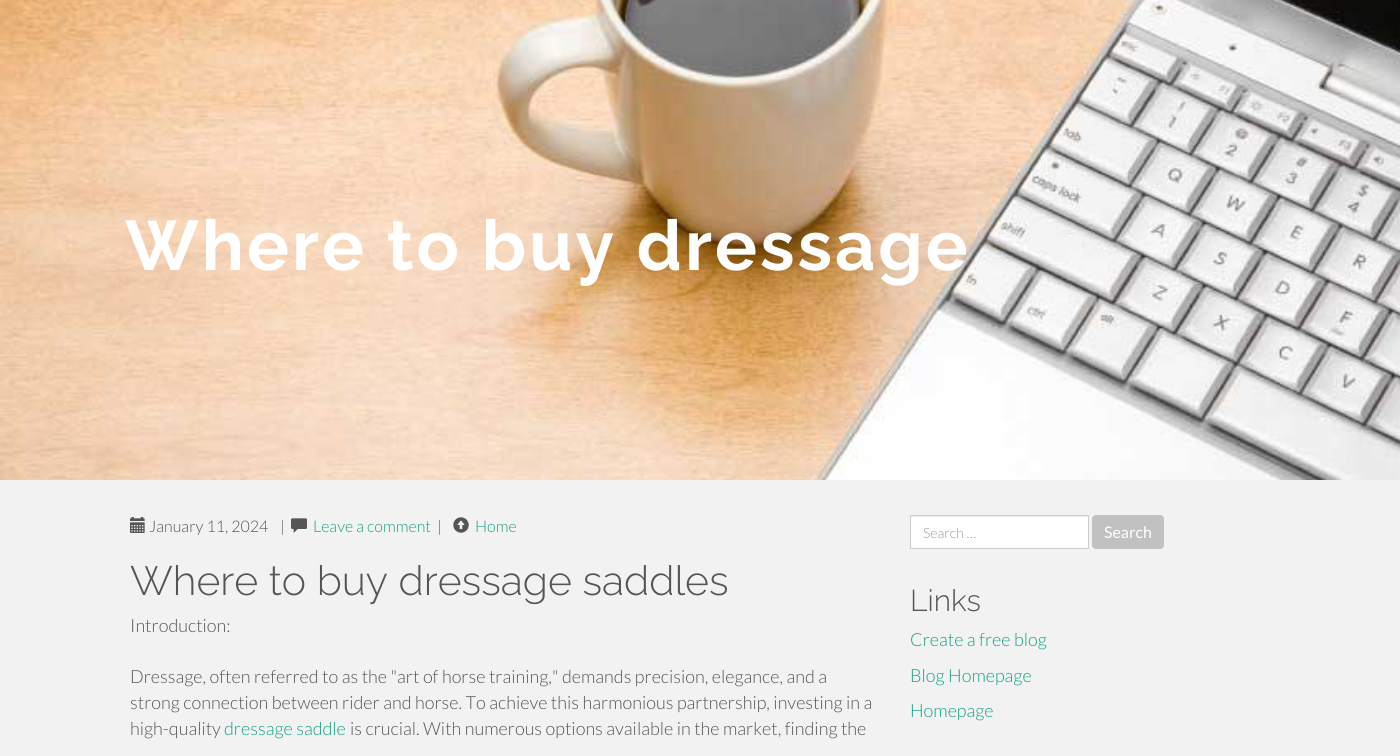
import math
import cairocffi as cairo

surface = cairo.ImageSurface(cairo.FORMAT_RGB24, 1400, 756)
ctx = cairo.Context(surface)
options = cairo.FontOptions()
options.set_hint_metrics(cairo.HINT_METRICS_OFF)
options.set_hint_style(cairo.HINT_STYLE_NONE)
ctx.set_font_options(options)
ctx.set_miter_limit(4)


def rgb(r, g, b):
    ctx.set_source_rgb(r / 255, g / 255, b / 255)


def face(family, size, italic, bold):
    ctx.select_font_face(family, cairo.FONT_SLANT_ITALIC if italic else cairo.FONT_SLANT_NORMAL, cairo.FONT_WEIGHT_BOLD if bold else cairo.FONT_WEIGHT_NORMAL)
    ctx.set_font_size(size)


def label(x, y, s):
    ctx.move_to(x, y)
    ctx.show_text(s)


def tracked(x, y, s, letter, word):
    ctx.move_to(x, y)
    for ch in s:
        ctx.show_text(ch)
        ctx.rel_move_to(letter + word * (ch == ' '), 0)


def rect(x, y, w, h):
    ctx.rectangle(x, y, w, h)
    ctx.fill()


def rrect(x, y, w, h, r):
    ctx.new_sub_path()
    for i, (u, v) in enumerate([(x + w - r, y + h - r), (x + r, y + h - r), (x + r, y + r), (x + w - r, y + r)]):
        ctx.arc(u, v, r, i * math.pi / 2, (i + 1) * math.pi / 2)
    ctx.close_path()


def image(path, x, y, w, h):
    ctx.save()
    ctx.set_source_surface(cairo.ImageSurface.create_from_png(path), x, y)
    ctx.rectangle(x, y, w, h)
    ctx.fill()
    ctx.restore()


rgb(242, 242, 242)
ctx.paint()
image('image0.png', 0, 0, 1400, 480)
face('Raleway', 70, 0, 1)
rgb(255, 255, 255)
tracked(125, 270, 'Where to buy dressage', 3, 0)
image('image1.png', 130, 517, 15, 16)
face('Lato Light', 16, 0, 0)
rgb(85, 85, 85)
label(149, 532, 'January 11, 2024')
label(280, 532, '|')
image('image2.png', 291, 518, 16, 15)
rgb(22, 160, 133)
label(313, 532, 'Leave a comment')
rgb(85, 85, 85)
label(437, 532, '|')
image('image3.png', 453, 517, 16, 16)
rgb(22, 160, 133)
label(475, 532, 'Home')
face('Raleway Light', 41, 0, 0)
rgb(85, 85, 85)
label(130, 595, 'Where to buy dressage saddles')
face('Lato Light', 18, 0, 0)
label(130, 632, 'Introduction:')
label(130, 683, 'Dressage, often referred to as the "art of horse training," demands precision, elegance, and a')
label(130, 709, 'strong connection between rider and horse. To achieve this harmonious partnership, investing in a')
label(130, 735, 'high-quality')
rgb(22, 160, 133)
label(224, 735, 'dressage saddle')
rgb(85, 85, 85)
label(350, 735, 'is crucial. With numerous options available in the market, finding the')
rgb(255, 255, 255)
rect(911, 517, 177, 31)
rgb(236, 236, 236)
rect(911, 516, 177, 1)
ctx.rectangle(910.5, 515.5, 178, 33)
rgb(204, 204, 204)
ctx.set_line_width(1)
ctx.stroke()
face('Lato Light', 14, 0, 0)
rgb(153, 153, 153)
label(923, 538, 'Search …')
rgb(193, 193, 193)
rrect(1092, 515, 72, 34, 4)
ctx.fill()
face('Lato', 16, 0, 0)
rgb(255, 255, 255)
label(1104, 538, 'Search')
face('Raleway Light', 30, 0, 0)
rgb(85, 85, 85)
label(910, 611, 'Links')
face('Lato Light', 18, 0, 0)
rgb(22, 160, 133)
label(910, 646, 'Create a free blog')
label(910, 682, 'Blog Homepage')
label(910, 717, 'Homepage')
surface.write_to_png('render.png')
